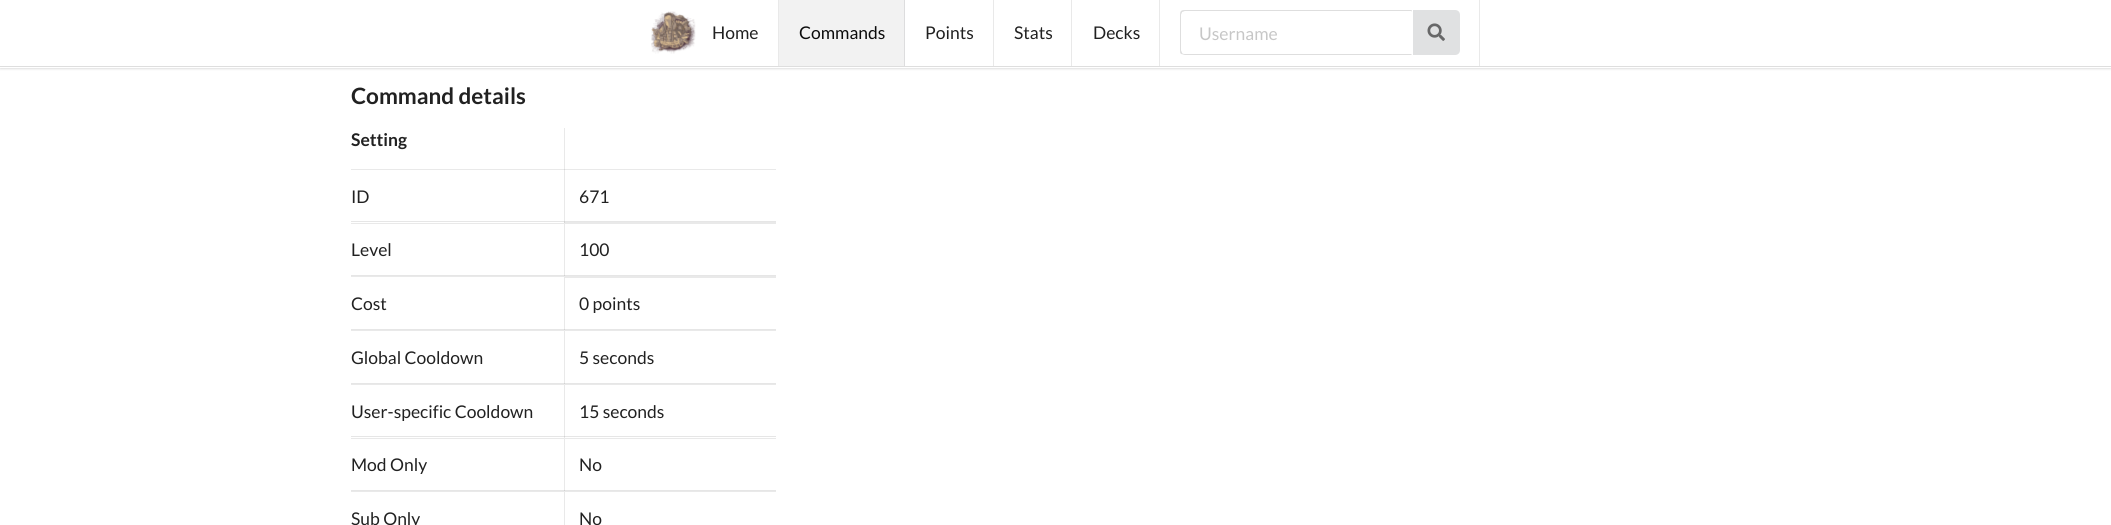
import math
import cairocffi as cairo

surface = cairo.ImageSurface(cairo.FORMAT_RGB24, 2111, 525)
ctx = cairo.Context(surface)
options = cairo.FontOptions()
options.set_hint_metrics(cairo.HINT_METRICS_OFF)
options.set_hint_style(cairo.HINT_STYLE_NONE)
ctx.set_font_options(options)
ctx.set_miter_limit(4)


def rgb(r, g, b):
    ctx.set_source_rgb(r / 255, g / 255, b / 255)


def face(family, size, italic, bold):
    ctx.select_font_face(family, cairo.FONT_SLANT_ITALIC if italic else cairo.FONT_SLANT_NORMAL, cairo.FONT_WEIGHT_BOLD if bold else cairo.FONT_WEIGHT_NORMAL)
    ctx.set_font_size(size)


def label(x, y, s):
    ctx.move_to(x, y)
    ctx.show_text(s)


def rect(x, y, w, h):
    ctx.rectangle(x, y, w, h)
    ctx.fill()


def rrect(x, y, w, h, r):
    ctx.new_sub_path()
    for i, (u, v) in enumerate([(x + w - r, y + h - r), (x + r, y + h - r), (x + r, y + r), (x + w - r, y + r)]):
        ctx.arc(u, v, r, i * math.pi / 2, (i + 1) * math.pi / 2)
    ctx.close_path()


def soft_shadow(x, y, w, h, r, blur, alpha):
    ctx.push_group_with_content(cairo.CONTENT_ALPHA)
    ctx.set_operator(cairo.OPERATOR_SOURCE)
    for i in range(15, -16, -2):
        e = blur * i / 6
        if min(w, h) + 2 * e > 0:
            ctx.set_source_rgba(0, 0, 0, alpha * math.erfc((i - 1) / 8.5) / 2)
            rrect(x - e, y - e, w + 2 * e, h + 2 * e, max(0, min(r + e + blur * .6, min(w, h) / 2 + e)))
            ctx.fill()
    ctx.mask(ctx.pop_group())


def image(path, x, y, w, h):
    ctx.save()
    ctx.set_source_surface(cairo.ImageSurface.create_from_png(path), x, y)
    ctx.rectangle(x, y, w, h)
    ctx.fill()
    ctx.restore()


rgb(255, 255, 255)
ctx.paint()
rgb(233, 233, 233)
rect(564, 128, 1, 95)
rgb(34, 36, 38)
soft_shadow(0, 1, 2111, 68, 0, 1, 0.15)
rgb(255, 255, 255)
rect(0, 0, 2111, 68)
rgb(222, 222, 222)
rect(0, 66, 2111, 1)
image('image0.png', 651, 11, 45, 43)
face('Lato', 17.5, 0, 0)
rgb(33, 33, 33)
label(712, 39, 'Home')
rgb(233, 233, 233)
rect(778, 0, 1, 66)
rgb(242, 242, 242)
rect(779, 0, 125, 66)
rgb(12, 12, 12)
label(799, 39, 'Commands')
rgb(221, 221, 222)
rect(904, 0, 1, 66)
rgb(33, 33, 33)
label(925, 39, 'Points')
rgb(233, 233, 233)
rect(993, 0, 1, 66)
rgb(33, 33, 33)
label(1014, 39, 'Stats')
rgb(233, 233, 233)
rect(1071, 0, 1, 66)
rgb(33, 33, 33)
label(1093, 39, 'Decks')
rgb(233, 233, 233)
rect(1159, 0, 1, 66)
rgb(222, 222, 222)
ctx.new_path()
ctx.move_to(1185, 10)
ctx.curve_to(1184, 10, 1182, 10, 1181, 11)
ctx.line_to(1182, 12)
ctx.curve_to(1183, 12, 1184, 11, 1185, 11)
ctx.line_to(1411, 11)
ctx.line_to(1411, 12)
ctx.line_to(1412, 10)
ctx.close_path()
ctx.fill()
ctx.new_path()
ctx.move_to(1185, 55)
ctx.line_to(1412, 55)
ctx.line_to(1411, 54)
ctx.line_to(1185, 54)
ctx.curve_to(1184, 54, 1183, 54, 1182, 53)
ctx.line_to(1181, 54)
ctx.curve_to(1182, 54, 1184, 55, 1185, 55)
ctx.close_path()
ctx.fill()
ctx.set_source_rgba(0.133, 0.141, 0.149, 0.15)
ctx.new_path()
ctx.move_to(1180, 15)
ctx.line_to(1180, 50)
ctx.curve_to(1180, 52, 1180, 53, 1181, 54)
ctx.line_to(1182, 53)
ctx.curve_to(1182, 52, 1181, 51, 1181, 50)
ctx.line_to(1181, 15)
ctx.curve_to(1181, 14, 1182, 13, 1182, 12)
ctx.line_to(1181, 11)
ctx.curve_to(1180, 12, 1180, 14, 1180, 15)
ctx.close_path()
ctx.fill()
rgb(199, 199, 199)
label(1199, 40, 'Username')
rgb(224, 225, 226)
ctx.new_path()
ctx.move_to(1413, 10)
ctx.line_to(1455, 10)
ctx.curve_to(1458, 10, 1460, 12, 1460, 15)
ctx.line_to(1460, 50)
ctx.curve_to(1460, 53, 1458, 55, 1455, 55)
ctx.line_to(1413, 55)
ctx.close_path()
ctx.fill()
image('image1.png', 1427, 23, 18, 18)
rgb(233, 233, 233)
rect(1479, 0, 1, 66)
face('Lato', 22.5, 0, 1)
rgb(33, 33, 33)
label(351, 104, 'Command details')
rgb(233, 233, 233)
rect(351, 169, 425, 1)
face('Lato', 17.5, 0, 1)
rgb(33, 33, 33)
label(351, 146, 'Setting')
rgb(213, 213, 214)
rect(564, 169, 1, 1)
rgb(230, 230, 230)
rect(351, 221, 425, 1)
rgb(210, 211, 211)
rect(564, 221, 1, 1)
face('Lato', 17.5, 0, 0)
rgb(33, 33, 33)
label(351, 203, 'ID')
label(579, 203, '671')
rgb(230, 230, 230)
rect(351, 275, 425, 1)
rgb(233, 233, 233)
rect(351, 223, 213, 1)
rgb(33, 33, 33)
label(351, 256, 'Level')
ctx.set_source_rgba(0.133, 0.141, 0.149, 0.1)
ctx.new_path()
ctx.move_to(564, 222)
ctx.line_to(776, 222)
ctx.line_to(776, 224)
ctx.line_to(565, 224)
ctx.close_path()
ctx.fill()
ctx.new_path()
ctx.move_to(564, 276)
ctx.line_to(564, 222)
ctx.line_to(565, 224)
ctx.line_to(565, 276)
ctx.close_path()
ctx.fill()
rgb(33, 33, 33)
label(579, 256, '100')
rgb(230, 230, 230)
rect(351, 329, 425, 1)
rgb(233, 233, 233)
rect(351, 276, 213, 1)
rgb(33, 33, 33)
label(351, 310, 'Cost')
rgb(233, 233, 233)
ctx.new_path()
ctx.move_to(564, 276)
ctx.line_to(776, 276)
ctx.line_to(776, 278)
ctx.line_to(565, 278)
ctx.close_path()
ctx.fill()
ctx.set_source_rgba(0.133, 0.141, 0.149, 0.1)
ctx.new_path()
ctx.move_to(564, 330)
ctx.line_to(564, 276)
ctx.line_to(565, 278)
ctx.line_to(565, 330)
ctx.close_path()
ctx.fill()
rgb(33, 33, 33)
label(579, 310, '0 points')
rgb(230, 230, 230)
rect(351, 383, 425, 1)
rgb(233, 233, 233)
rect(351, 330, 213, 1)
rgb(33, 33, 33)
label(351, 364, 'Global Cooldown')
rgb(233, 233, 233)
ctx.new_path()
ctx.move_to(564, 330)
ctx.line_to(776, 330)
ctx.line_to(776, 331)
ctx.line_to(565, 331)
ctx.close_path()
ctx.fill()
ctx.set_source_rgba(0.133, 0.141, 0.149, 0.1)
ctx.new_path()
ctx.move_to(564, 384)
ctx.line_to(564, 330)
ctx.line_to(565, 331)
ctx.line_to(565, 384)
ctx.close_path()
ctx.fill()
rgb(33, 33, 33)
label(579, 364, '5 seconds')
rgb(230, 230, 230)
rect(351, 436, 425, 1)
rgb(233, 233, 233)
rect(351, 384, 213, 1)
rgb(33, 33, 33)
label(351, 418, 'User-specific Cooldown')
rgb(233, 233, 233)
ctx.new_path()
ctx.move_to(564, 384)
ctx.line_to(776, 384)
ctx.line_to(776, 385)
ctx.line_to(565, 385)
ctx.close_path()
ctx.fill()
ctx.set_source_rgba(0.133, 0.141, 0.149, 0.1)
ctx.new_path()
ctx.move_to(564, 438)
ctx.line_to(564, 384)
ctx.line_to(565, 385)
ctx.line_to(565, 438)
ctx.close_path()
ctx.fill()
rgb(33, 33, 33)
label(579, 418, '15 seconds')
rgb(230, 230, 230)
rect(351, 490, 425, 1)
rgb(233, 233, 233)
rect(351, 438, 213, 1)
rgb(33, 33, 33)
label(351, 471, 'Mod Only')
rgb(233, 233, 233)
ctx.new_path()
ctx.move_to(564, 438)
ctx.line_to(776, 438)
ctx.line_to(776, 439)
ctx.line_to(565, 439)
ctx.close_path()
ctx.fill()
ctx.set_source_rgba(0.133, 0.141, 0.149, 0.1)
ctx.new_path()
ctx.move_to(564, 491)
ctx.line_to(564, 438)
ctx.line_to(565, 439)
ctx.line_to(565, 491)
ctx.close_path()
ctx.fill()
rgb(33, 33, 33)
label(579, 471, 'No')
rgb(233, 233, 233)
rect(351, 491, 213, 1)
rgb(33, 33, 33)
label(351, 525, 'Sub Only')
rgb(233, 233, 233)
ctx.new_path()
ctx.move_to(564, 491)
ctx.line_to(776, 491)
ctx.line_to(776, 492)
ctx.line_to(565, 492)
ctx.close_path()
ctx.fill()
ctx.set_source_rgba(0.133, 0.141, 0.149, 0.1)
ctx.new_path()
ctx.move_to(564, 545)
ctx.line_to(564, 491)
ctx.line_to(565, 492)
ctx.line_to(565, 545)
ctx.close_path()
ctx.fill()
rgb(33, 33, 33)
label(579, 525, 'No')
surface.write_to_png('render.png')
